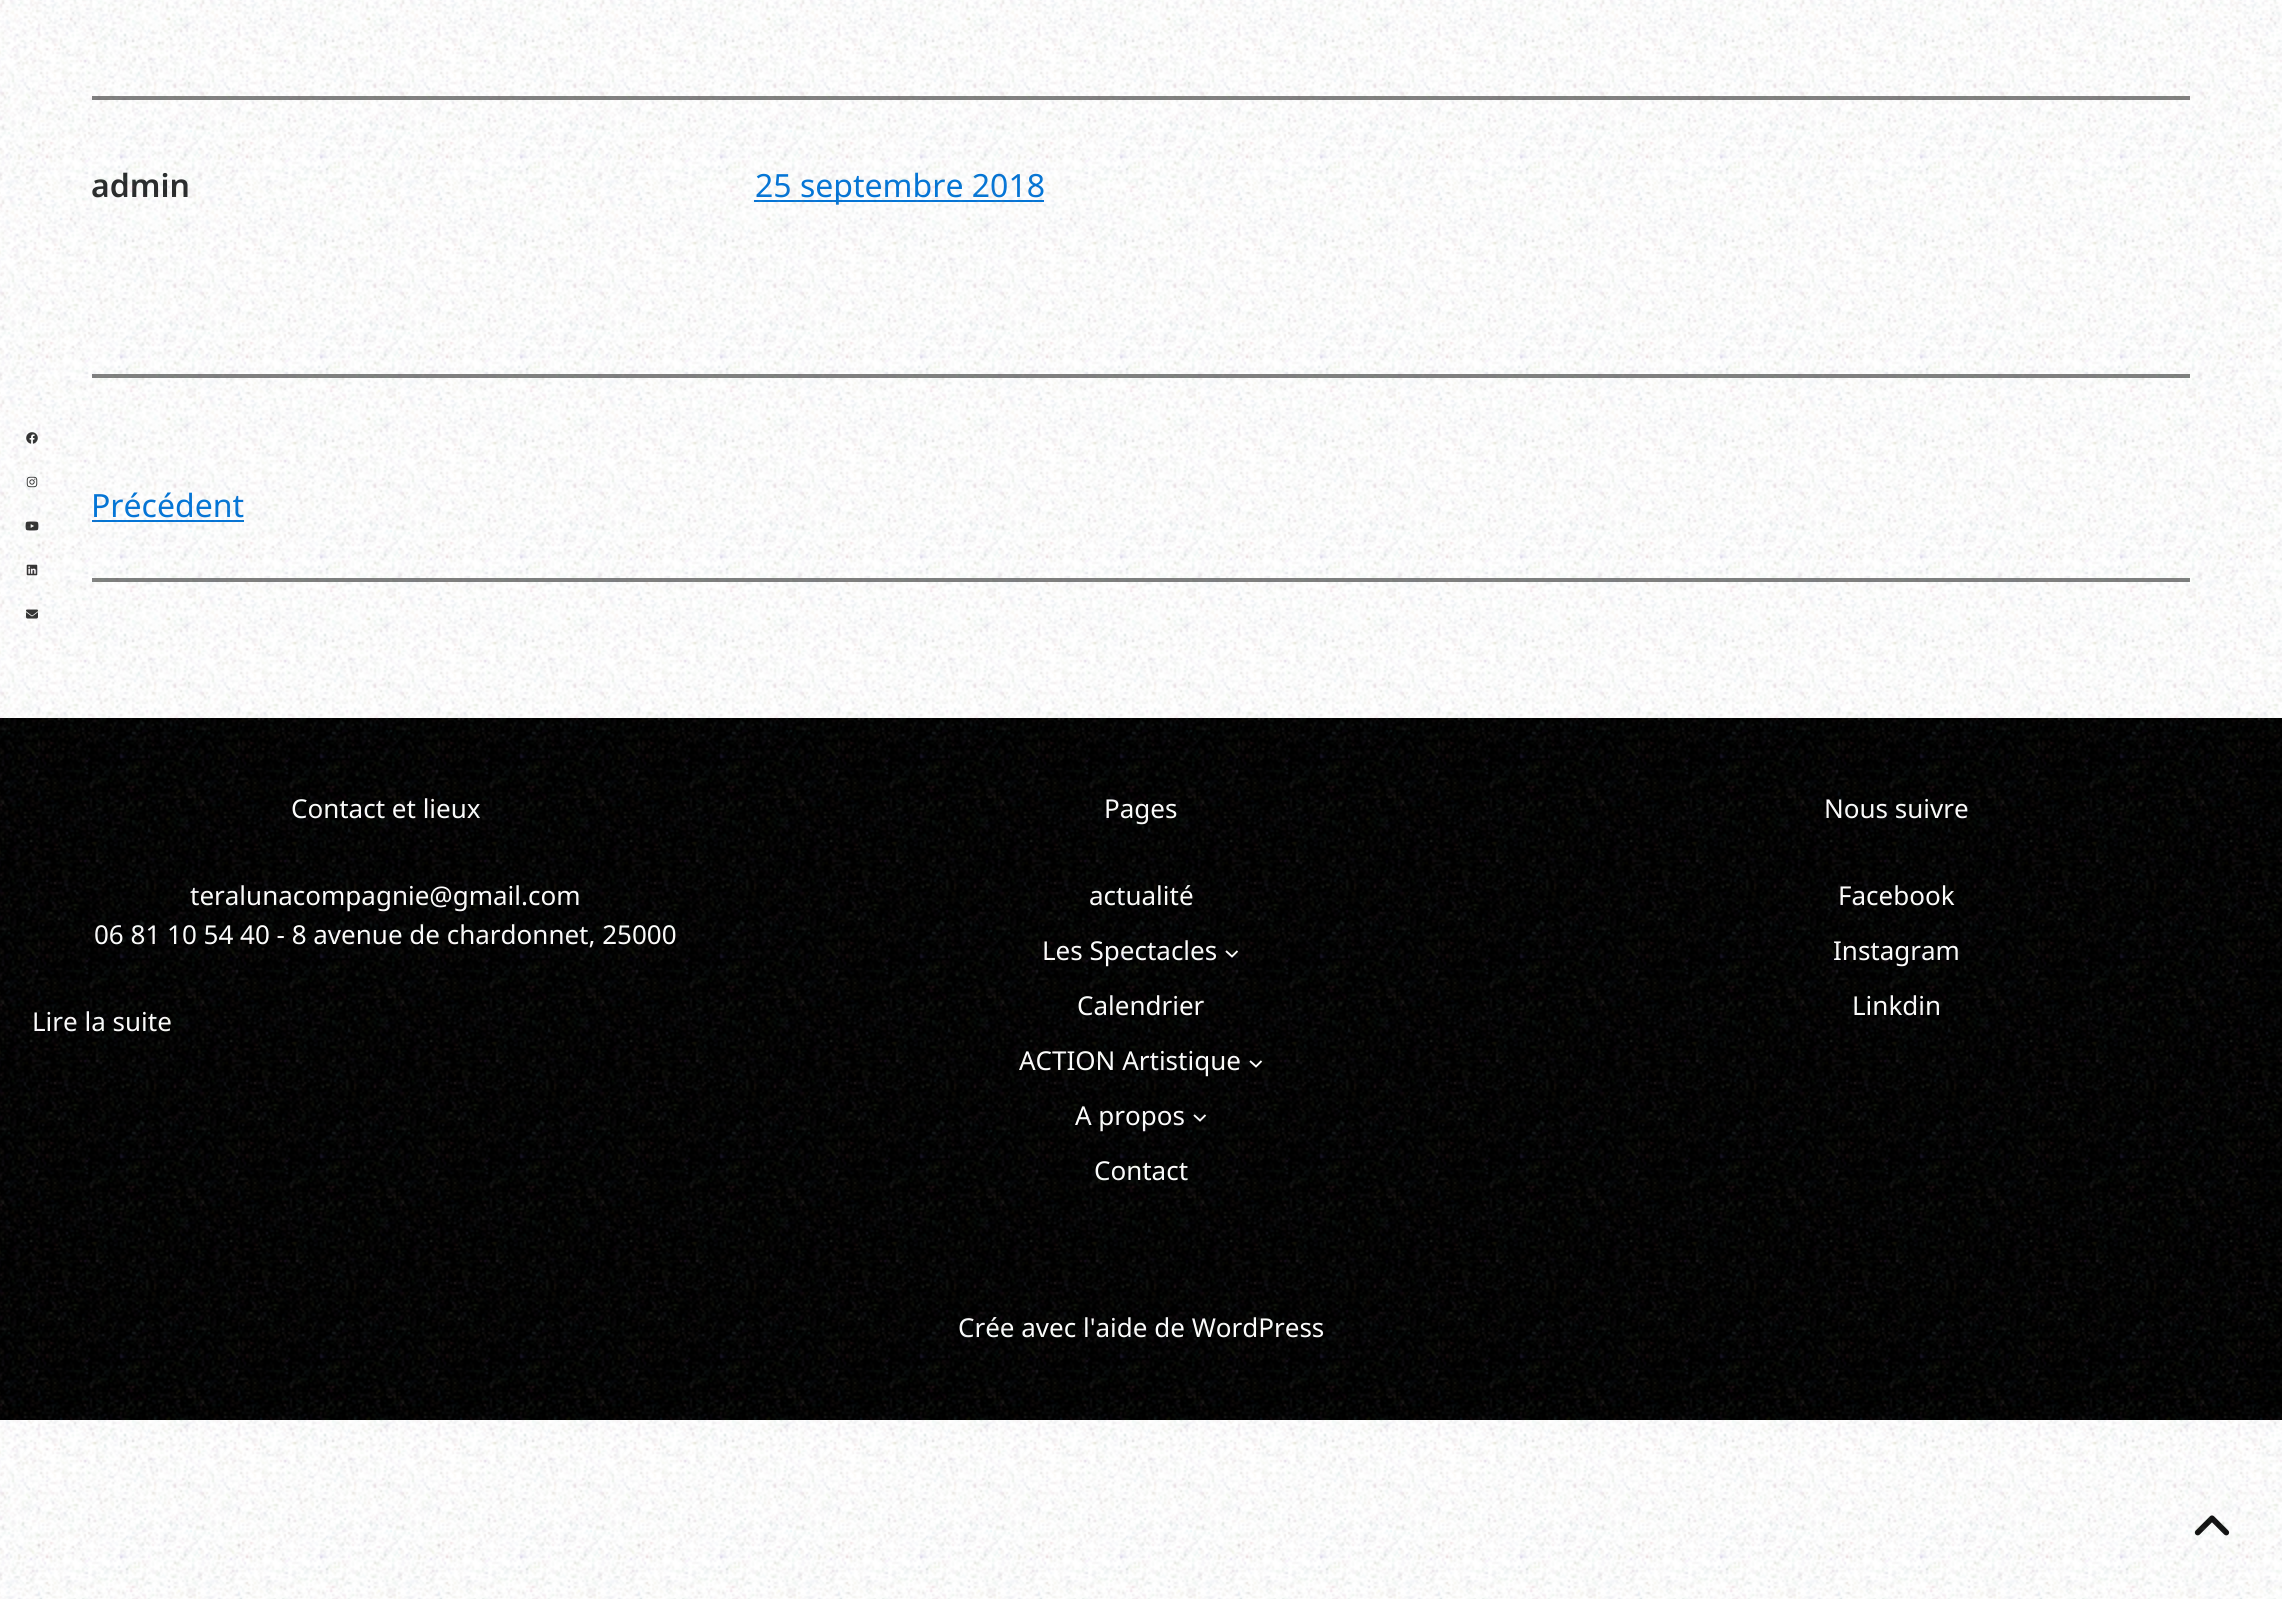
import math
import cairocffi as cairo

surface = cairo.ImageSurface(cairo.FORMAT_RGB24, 2282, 1599)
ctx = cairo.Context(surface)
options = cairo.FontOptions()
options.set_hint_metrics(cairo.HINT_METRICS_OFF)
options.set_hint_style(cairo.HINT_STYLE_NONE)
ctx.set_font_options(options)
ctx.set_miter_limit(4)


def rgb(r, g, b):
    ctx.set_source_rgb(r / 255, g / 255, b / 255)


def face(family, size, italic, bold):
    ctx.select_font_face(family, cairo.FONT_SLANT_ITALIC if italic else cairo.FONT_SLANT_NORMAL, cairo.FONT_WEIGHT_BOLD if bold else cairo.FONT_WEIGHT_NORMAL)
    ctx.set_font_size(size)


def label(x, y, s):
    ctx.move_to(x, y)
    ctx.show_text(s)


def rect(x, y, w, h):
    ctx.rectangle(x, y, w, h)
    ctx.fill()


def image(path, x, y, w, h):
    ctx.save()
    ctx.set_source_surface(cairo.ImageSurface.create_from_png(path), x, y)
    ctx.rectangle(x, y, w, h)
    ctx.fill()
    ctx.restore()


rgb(255, 255, 255)
ctx.paint()
image('image0.png', 26, 432, 12, 12)
image('image1.png', 26, 476, 12, 12)
image('image2.png', 25, 521, 14, 10)
image('image3.png', 26, 564, 12, 12)
image('image4.png', 26, 609, 12, 10)
rgb(128, 128, 128)
rect(92, 96, 2098, 4)
face('Noto Sans SemiBold', 32, 0, 0)
rgb(41, 43, 44)
label(91, 197, 'admin')
rgb(2, 117, 216)
rect(754, 200, 290, 2)
face('Noto Sans', 32, 0, 0)
label(755, 197, '25 septembre 2018')
rgb(128, 128, 128)
rect(92, 374, 2098, 4)
rgb(2, 117, 216)
label(91, 517, 'Précédent')
rect(92, 520, 152, 2)
rgb(128, 128, 128)
rect(92, 578, 2098, 4)
rgb(0, 0, 0)
rect(0, 718, 2282, 702)
face('Noto Sans', 26, 0, 0)
rgb(255, 255, 255)
label(291, 818, 'Contact et lieux')
label(190, 905, 'teralunacompagnie@gmail.com')
label(94, 944, '06 81 10 54 40 - 8 avenue de chardonnet, 25000')
label(32, 1031, 'Lire la suite')
label(1104, 818, 'Pages')
label(1089, 905, 'actualité')
label(1042, 960, 'Les Spectacles')
ctx.new_path()
ctx.move_to(1226, 951)
ctx.line_to(1232, 956.5)
ctx.line_to(1237.5, 951)
ctx.set_line_width(1.9)
ctx.stroke()
label(1077, 1015, 'Calendrier')
label(1019, 1070, 'ACTION Artistique')
ctx.new_path()
ctx.move_to(1250, 1061)
ctx.line_to(1256, 1066.5)
ctx.line_to(1261.5, 1061)
ctx.stroke()
label(1075, 1125, 'A propos')
ctx.new_path()
ctx.move_to(1194, 1115)
ctx.line_to(1200, 1120.5)
ctx.line_to(1205.5, 1115)
ctx.stroke()
label(1094, 1180, 'Contact')
label(1824, 818, 'Nous suivre')
label(1838, 905, 'Facebook')
label(1833, 960, 'Instagram')
label(1852, 1015, 'Linkdin')
label(958, 1337, 'Crée avec l\'aide de WordPress')
image('image6.png', 2194, 1515, 36, 21)
image('image5.png', 0, 0, 2282, 1599)
surface.write_to_png('render.png')
